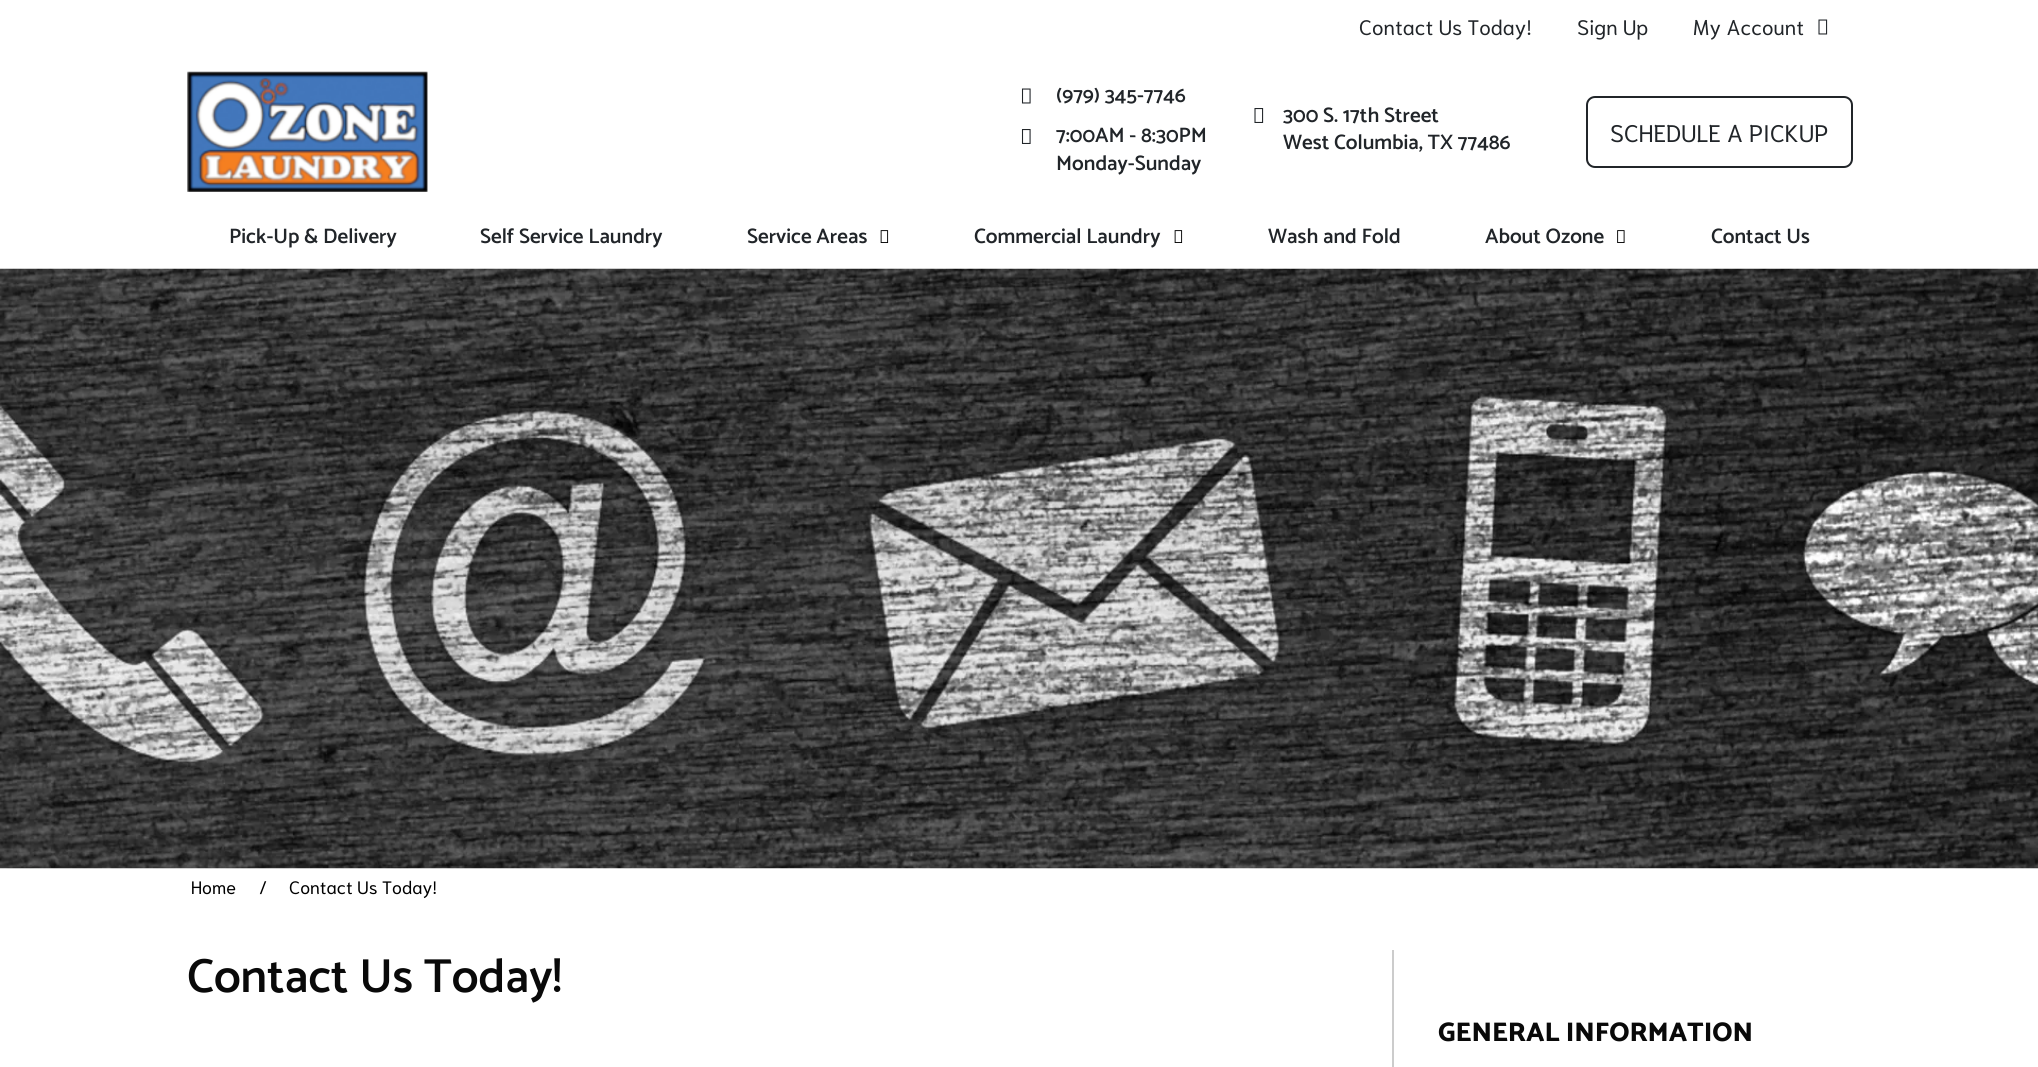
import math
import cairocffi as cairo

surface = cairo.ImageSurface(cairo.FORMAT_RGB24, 2038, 1067)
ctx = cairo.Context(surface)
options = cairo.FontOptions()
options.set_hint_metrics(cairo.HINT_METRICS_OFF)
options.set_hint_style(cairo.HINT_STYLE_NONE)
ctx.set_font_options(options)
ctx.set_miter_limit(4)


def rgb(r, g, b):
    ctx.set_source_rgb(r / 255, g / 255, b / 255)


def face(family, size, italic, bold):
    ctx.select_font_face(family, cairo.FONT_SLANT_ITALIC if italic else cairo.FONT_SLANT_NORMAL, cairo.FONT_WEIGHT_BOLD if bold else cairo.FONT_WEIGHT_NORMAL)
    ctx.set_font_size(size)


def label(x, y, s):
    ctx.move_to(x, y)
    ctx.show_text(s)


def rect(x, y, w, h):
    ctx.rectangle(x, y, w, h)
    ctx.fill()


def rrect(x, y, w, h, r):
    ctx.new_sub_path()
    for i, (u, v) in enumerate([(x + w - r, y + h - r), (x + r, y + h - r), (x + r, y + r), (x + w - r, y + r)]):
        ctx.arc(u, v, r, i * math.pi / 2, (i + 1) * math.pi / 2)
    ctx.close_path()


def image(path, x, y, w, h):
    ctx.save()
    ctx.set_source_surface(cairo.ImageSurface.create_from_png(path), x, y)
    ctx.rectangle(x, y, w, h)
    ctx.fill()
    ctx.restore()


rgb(255, 255, 255)
ctx.paint()
face('Niramit', 21, 0, 0)
rgb(33, 37, 41)
label(1359, 35, 'Contact Us Today!')
label(1577, 35, 'Sign Up')
label(1693, 35, 'My Account')
image('image0.png', 1818, 19, 10, 16)
image('image1.png', 187, 71, 241, 121)
image('image2.png', 1021, 88, 10, 16)
face('Catamaran SemiBold', 21, 0, 0)
label(1056, 102, '(979) 345-7746')
image('image3.png', 1021, 129, 10, 15)
label(1056, 142, '7:00AM - 8:30PM')
label(1056, 170, 'Monday-Sunday')
image('image4.png', 1254, 108, 10, 15)
label(1283, 122, '300 S. 17th Street')
label(1283, 149, 'West Columbia, TX 77486')
rrect(1587, 97, 265, 70, 8)
ctx.stroke()
face('Niramit', 24, 0, 0)
label(1610, 142, 'SCHEDULE A PICKUP')
face('Catamaran SemiBold', 21, 0, 0)
label(229, 243, 'Pick-Up & Delivery')
label(480, 243, 'Self Service Laundry')
label(747, 243, 'Service Areas')
image('image5.png', 880, 230, 9, 13)
label(974, 243, 'Commercial Laundry')
image('image5.png', 1174, 230, 9, 13)
label(1268, 243, 'Wash and Fold')
label(1485, 243, 'About Ozone')
image('image6.png', 1617, 230, 8, 13)
label(1711, 243, 'Contact Us')
image('image7.png', 0, 268, 2038, 601)
face('Niramit', 18, 0, 0)
rgb(0, 0, 0)
label(191, 894, 'Home')
label(259, 894, '/')
label(289, 894, 'Contact Us Today!')
rgb(204, 204, 204)
rect(1392, 950, 2, 117)
face('Catamaran SemiBold', 48, 0, 0)
rgb(9, 9, 9)
label(187, 992, 'Contact Us Today!')
face('Catamaran ExtraBold', 27, 0, 0)
label(1438, 1041, 'GENERAL INFORMATION')
surface.write_to_png('render.png')
